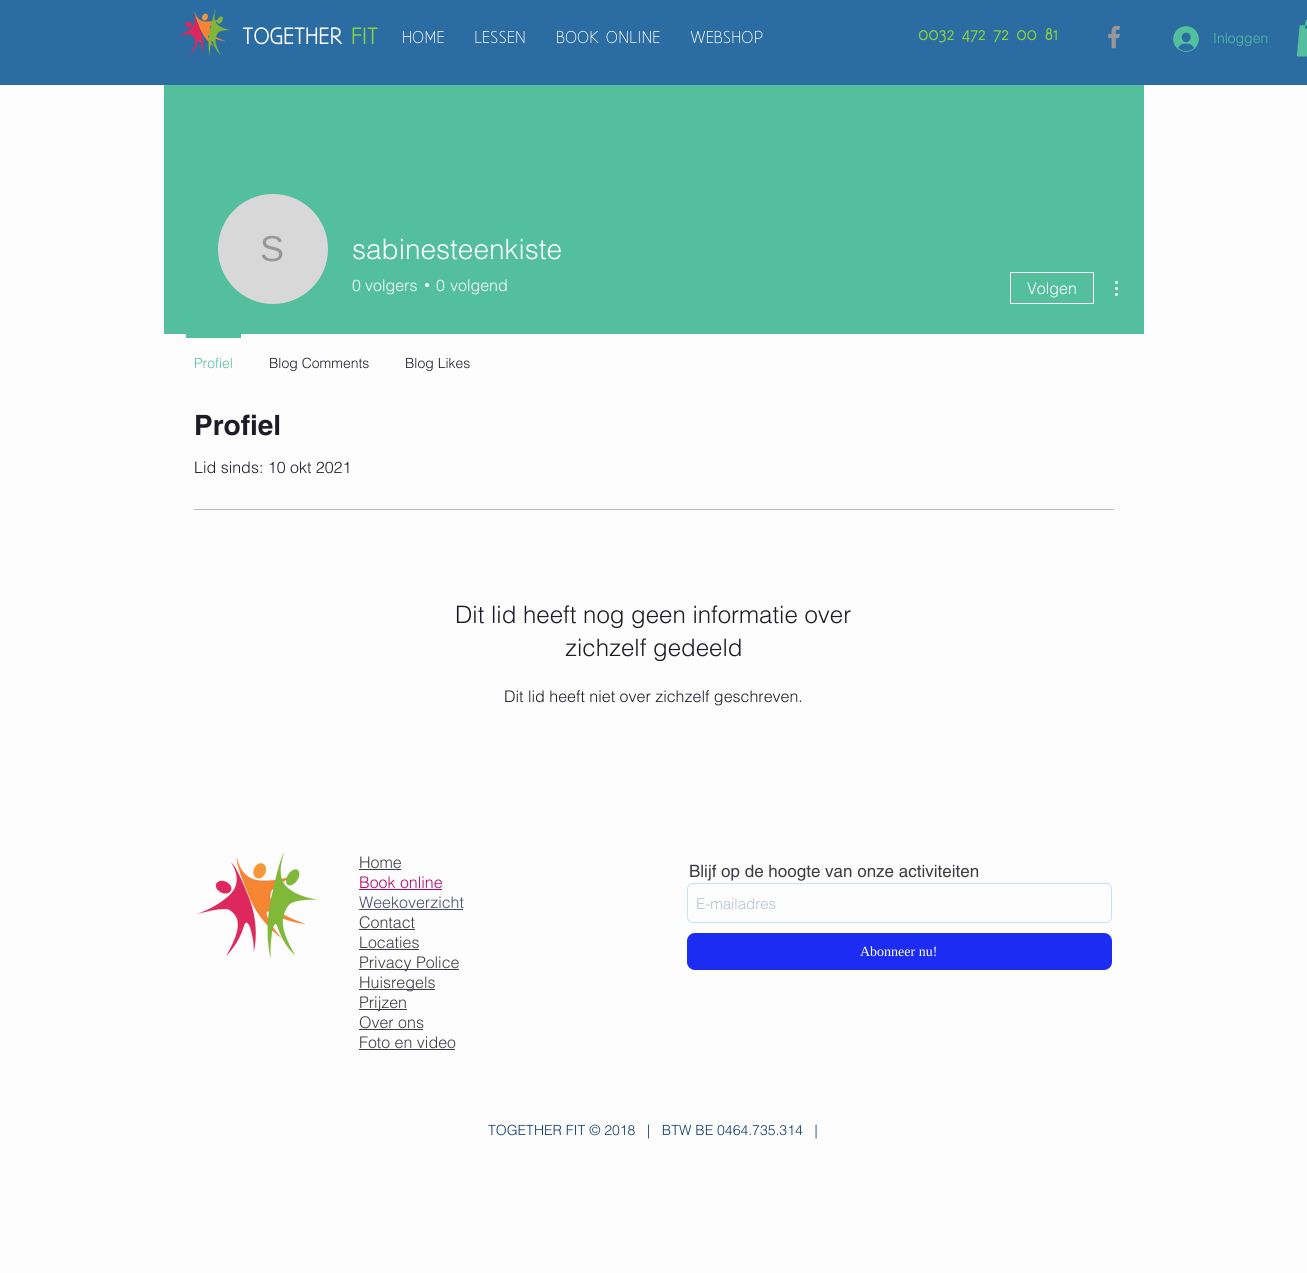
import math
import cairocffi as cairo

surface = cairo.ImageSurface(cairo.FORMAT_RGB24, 1307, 1273)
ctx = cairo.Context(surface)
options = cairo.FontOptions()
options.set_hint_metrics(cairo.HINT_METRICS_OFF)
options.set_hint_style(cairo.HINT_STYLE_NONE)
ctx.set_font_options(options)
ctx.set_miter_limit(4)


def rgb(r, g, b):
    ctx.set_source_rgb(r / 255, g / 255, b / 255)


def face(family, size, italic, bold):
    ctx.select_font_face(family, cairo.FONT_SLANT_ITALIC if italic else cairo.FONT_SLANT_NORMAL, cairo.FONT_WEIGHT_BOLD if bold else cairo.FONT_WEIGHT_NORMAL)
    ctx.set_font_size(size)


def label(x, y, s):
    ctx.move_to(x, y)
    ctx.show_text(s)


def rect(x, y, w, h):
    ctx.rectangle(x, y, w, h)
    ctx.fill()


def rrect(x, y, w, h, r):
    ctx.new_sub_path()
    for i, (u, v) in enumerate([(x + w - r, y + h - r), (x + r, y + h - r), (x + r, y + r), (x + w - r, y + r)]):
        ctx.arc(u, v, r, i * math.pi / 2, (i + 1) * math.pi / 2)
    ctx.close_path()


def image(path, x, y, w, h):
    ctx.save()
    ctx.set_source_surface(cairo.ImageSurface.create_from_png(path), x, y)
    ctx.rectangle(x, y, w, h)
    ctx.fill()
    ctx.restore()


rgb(254, 253, 254)
ctx.paint()
rgb(43, 108, 163)
rect(0, 0, 1307, 85)
image('image0.png', 177, 9, 54, 48)
face('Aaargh', 20, 0, 1)
rgb(255, 255, 255)
label(242, 44, 'TOGETHER')
rgb(136, 209, 63)
label(351, 44, 'FIT')
face('Aaargh', 15, 0, 0)
rgb(255, 255, 255)
label(402, 43, 'HOME')
label(474, 43, 'LESSEN')
label(556, 43, 'BOOK ONLINE')
label(690, 43, 'WEBSHOP')
face('Aaargh', 16, 0, 1)
rgb(136, 209, 63)
label(918, 40, '0032 472 72 00 81')
image('image1.png', 1108, 25, 12, 24)
image('image2.png', 1173, 26, 26, 26)
face('helvetica Light', 14, 0, 0)
rgb(84, 191, 157)
label(1213, 43, 'Inloggen')
image('image3.png', 1296, 19, 11, 38)
rect(164, 85, 980, 249)
rgb(216, 216, 216)
ctx.arc(273, 249, 55, 0, 2 * math.pi)
ctx.fill()
face('Liberation Sans', 36, 0, 0)
rgb(151, 151, 151)
label(260, 261, 'S')
face('helvetica Light', 28, 0, 0)
rgb(255, 255, 255)
label(352, 259, 'sabinesteenkiste')
face('helvetica Light', 16, 0, 0)
label(352, 291, '0')
label(365, 291, 'volgers')
rgb(254, 253, 254)
ctx.new_path()
ctx.arc(427, 285, 2, 0, 2 * math.pi)
ctx.fill()
rgb(255, 255, 255)
label(436, 291, '0')
label(450, 291, 'volgend')
ctx.rectangle(1010.5, 272.5, 83, 31)
rgb(254, 253, 254)
ctx.set_line_width(1)
ctx.stroke()
rgb(255, 255, 255)
label(1027, 294, 'Volgen')
image('image4.png', 1115, 281, 3, 15)
rgb(84, 191, 157)
rect(186, 334, 55, 4)
face('helvetica Light', 14, 0, 0)
label(194, 368, 'Profiel')
rgb(29, 27, 37)
label(269, 368, 'Blog Comments')
label(405, 368, 'Blog Likes')
face('helvetica', 28, 0, 1)
label(194, 435, 'Profiel')
face('helvetica Light', 16, 0, 0)
label(194, 473, 'Lid sinds: 10 okt 2021')
rgb(187, 185, 189)
rect(194, 509, 920, 1)
face('helvetica Light', 24, 0, 0)
rgb(29, 27, 37)
label(455, 623, 'Dit lid heeft nog geen informatie over')
label(565, 656, 'zichzelf gedeeld')
face('helvetica Light', 16, 0, 0)
label(504, 702, 'Dit lid heeft niet over zichzelf geschreven.')
image('image5.png', 196, 852, 123, 107)
rgb(60, 60, 66)
label(359, 868, 'Home')
rect(359, 869, 42, 1)
rgb(176, 6, 102)
label(359, 888, 'Book online')
rect(359, 889, 83, 1)
rgb(74, 76, 103)
label(359, 908, 'Weekoverzicht')
rect(359, 909, 104, 1)
rgb(60, 60, 66)
label(359, 928, 'Contact')
rect(359, 929, 56, 1)
label(359, 948, 'Locaties')
rect(359, 949, 60, 1)
rect(359, 969, 100, 1)
label(359, 968, 'Privacy Police')
rect(359, 989, 76, 1)
label(359, 988, 'Huisregels')
rect(359, 1009, 48, 1)
label(359, 1008, 'Prijzen')
label(359, 1028, 'Over ons')
rect(359, 1029, 64, 1)
label(359, 1048, 'Foto en video')
rect(359, 1049, 96, 1)
face('helvetica', 17, 0, 0)
label(689, 877, 'Blijf op de hoogte van onze activiteiten')
rrect(687.5, 883.5, 424, 39, 5.5)
rgb(198, 226, 247)
ctx.stroke()
face('helvetica Light', 15, 0, 0)
rgb(182, 193, 205)
label(696, 909, 'E-mailadres')
rgb(29, 44, 243)
rrect(687, 933, 425, 37, 8)
ctx.fill()
face('Liberation Serif', 14, 0, 0)
rgb(255, 255, 255)
label(860, 956, 'Abonneer nu!')
face('helvetica Light', 14, 0, 0)
rgb(14, 61, 104)
label(488, 1135, 'TOGETHER FIT © 2018   |   BTW BE 0464.735.314   |')
surface.write_to_png('render.png')
